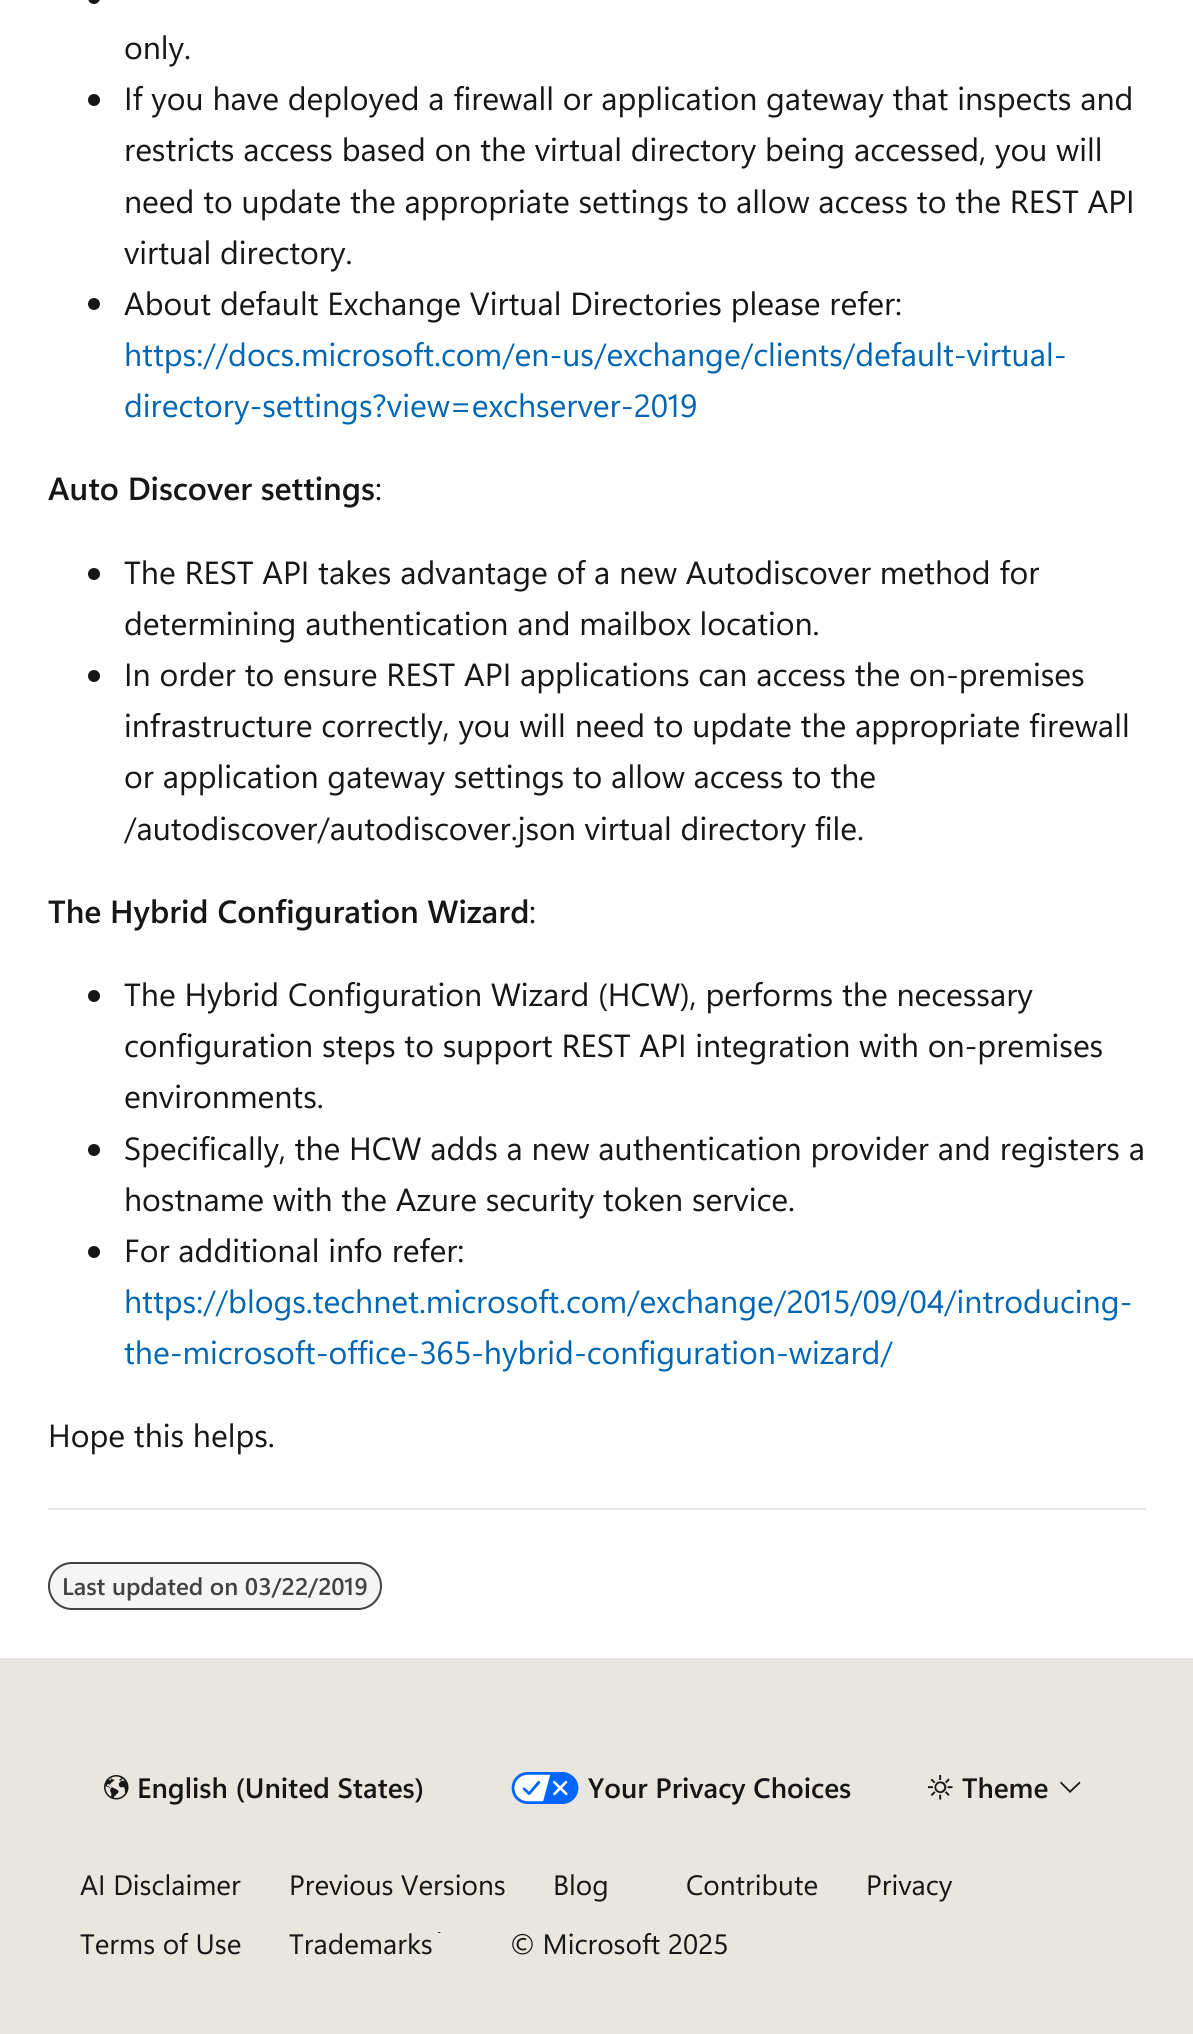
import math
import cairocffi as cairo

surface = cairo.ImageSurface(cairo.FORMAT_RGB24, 1193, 2034)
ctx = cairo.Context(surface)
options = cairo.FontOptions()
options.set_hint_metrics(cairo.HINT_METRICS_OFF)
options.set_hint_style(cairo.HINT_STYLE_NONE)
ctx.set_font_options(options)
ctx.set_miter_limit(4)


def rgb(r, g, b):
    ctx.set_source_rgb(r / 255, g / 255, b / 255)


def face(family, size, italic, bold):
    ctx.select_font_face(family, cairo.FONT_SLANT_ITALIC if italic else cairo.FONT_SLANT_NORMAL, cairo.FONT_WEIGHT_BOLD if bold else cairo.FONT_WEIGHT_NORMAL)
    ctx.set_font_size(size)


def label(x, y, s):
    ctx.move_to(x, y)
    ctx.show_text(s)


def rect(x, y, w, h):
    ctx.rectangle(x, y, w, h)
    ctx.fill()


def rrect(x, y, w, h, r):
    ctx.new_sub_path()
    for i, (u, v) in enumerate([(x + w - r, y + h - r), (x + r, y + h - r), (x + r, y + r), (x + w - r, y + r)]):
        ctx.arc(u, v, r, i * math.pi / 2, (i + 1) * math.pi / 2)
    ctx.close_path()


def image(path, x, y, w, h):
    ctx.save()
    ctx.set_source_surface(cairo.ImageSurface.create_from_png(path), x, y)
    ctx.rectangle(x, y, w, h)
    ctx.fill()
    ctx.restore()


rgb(255, 255, 255)
ctx.paint()
rgb(22, 22, 22)
rrect(88, -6, 12, 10, 6)
ctx.fill()
face('Segoe UI', 32, 0, 0)
label(124, 59, 'only.')
ctx.new_path()
ctx.arc(94, 100, 6, 0, 2 * math.pi)
ctx.fill()
label(124, 110, 'If you have deployed a firewall or application gateway that inspects and')
label(124, 161, 'restricts access based on the virtual directory being accessed, you will')
label(124, 213, 'need to update the appropriate settings to allow access to the REST API')
label(124, 264, 'virtual directory.')
ctx.new_path()
ctx.arc(94, 304, 6, 0, 2 * math.pi)
ctx.fill()
label(124, 315, 'About default Exchange Virtual Directories please refer:')
rgb(0, 101, 179)
label(124, 366, 'https://docs.microsoft.com/en-us/exchange/clients/default-virtual-')
label(124, 417, 'directory-settings?view=exchserver-2019')
face('Segoe UI SemiBold', 32, 0, 0)
rgb(22, 22, 22)
label(48, 500, 'Auto Discover settings')
face('Segoe UI', 32, 0, 0)
label(375, 500, ':')
ctx.new_path()
ctx.arc(94, 574, 6, 0, 2 * math.pi)
ctx.fill()
label(124, 584, 'The REST API takes advantage of a new Autodiscover method for')
label(124, 635, 'determining authentication and mailbox location.')
ctx.new_path()
ctx.arc(94, 676, 6, 0, 2 * math.pi)
ctx.fill()
label(124, 686, 'In order to ensure REST API applications can access the on-premises')
label(124, 737, 'infrastructure correctly, you will need to update the appropriate firewall')
label(124, 788, 'or application gateway settings to allow access to the')
label(124, 840, '/autodiscover/autodiscover.json virtual directory file.')
face('Segoe UI SemiBold', 32, 0, 0)
label(48, 923, 'The Hybrid Configuration Wizard')
face('Segoe UI', 32, 0, 0)
label(529, 923, ':')
ctx.new_path()
ctx.arc(94, 996, 6, 0, 2 * math.pi)
ctx.fill()
label(124, 1006, 'The Hybrid Configuration Wizard (HCW), performs the necessary')
label(124, 1057, 'configuration steps to support REST API integration with on-premises')
label(124, 1108, 'environments.')
ctx.new_path()
ctx.arc(94, 1150, 6, 0, 2 * math.pi)
ctx.fill()
label(124, 1160, 'Specifically, the HCW adds a new authentication provider and registers a')
label(124, 1211, 'hostname with the Azure security token service.')
ctx.new_path()
ctx.arc(94, 1252, 6, 0, 2 * math.pi)
ctx.fill()
label(124, 1262, 'For additional info refer:')
rgb(0, 101, 179)
label(124, 1313, 'https://blogs.technet.microsoft.com/exchange/2015/09/04/introducing-')
label(124, 1364, 'the-microsoft-office-365-hybrid-configuration-wizard/')
rgb(22, 22, 22)
label(48, 1447, 'Hope this helps.')
rgb(230, 230, 230)
rect(48, 1508, 1098, 2)
rgb(245, 245, 245)
rrect(49, 1563, 332, 46, 23)
ctx.fill_preserve()
rgb(66, 66, 66)
ctx.stroke()
face('Segoe UI SemiBold', 24, 0, 0)
label(62, 1595, 'Last updated on 03/22/2019')
rgb(232, 230, 223)
rect(0, 1660, 1193, 374)
rgb(230, 230, 230)
rect(0, 1658, 1193, 2)
image('image0.png', 104, 1775, 25, 25)
face('Segoe UI SemiBold', 28, 0, 0)
rgb(22, 22, 22)
label(137, 1798, 'English (United States)')
image('image1.png', 511, 1772, 68, 32)
label(588, 1798, 'Your Privacy Choices')
image('image2.png', 928, 1775, 25, 25)
label(962, 1798, 'Theme')
ctx.new_path()
ctx.move_to(1070, 1793)
ctx.line_to(1060, 1783)
ctx.line_to(1061, 1781.5)
ctx.line_to(1070, 1790.5)
ctx.line_to(1079.5, 1781.5)
ctx.line_to(1080.5, 1783)
ctx.close_path()
ctx.fill()
face('Segoe UI', 28, 0, 0)
label(80, 1895, 'AI Disclaimer')
label(289, 1895, 'Previous Versions')
label(553, 1895, 'Blog')
label(686, 1895, 'Contribute')
label(866, 1895, 'Privacy')
label(80, 1954, 'Terms of Use')
image('image3.png', 438, 1932, 3, 1)
label(289, 1954, 'Trademarks')
label(510, 1954, '© Microsoft 2025')
surface.write_to_png('render.png')
